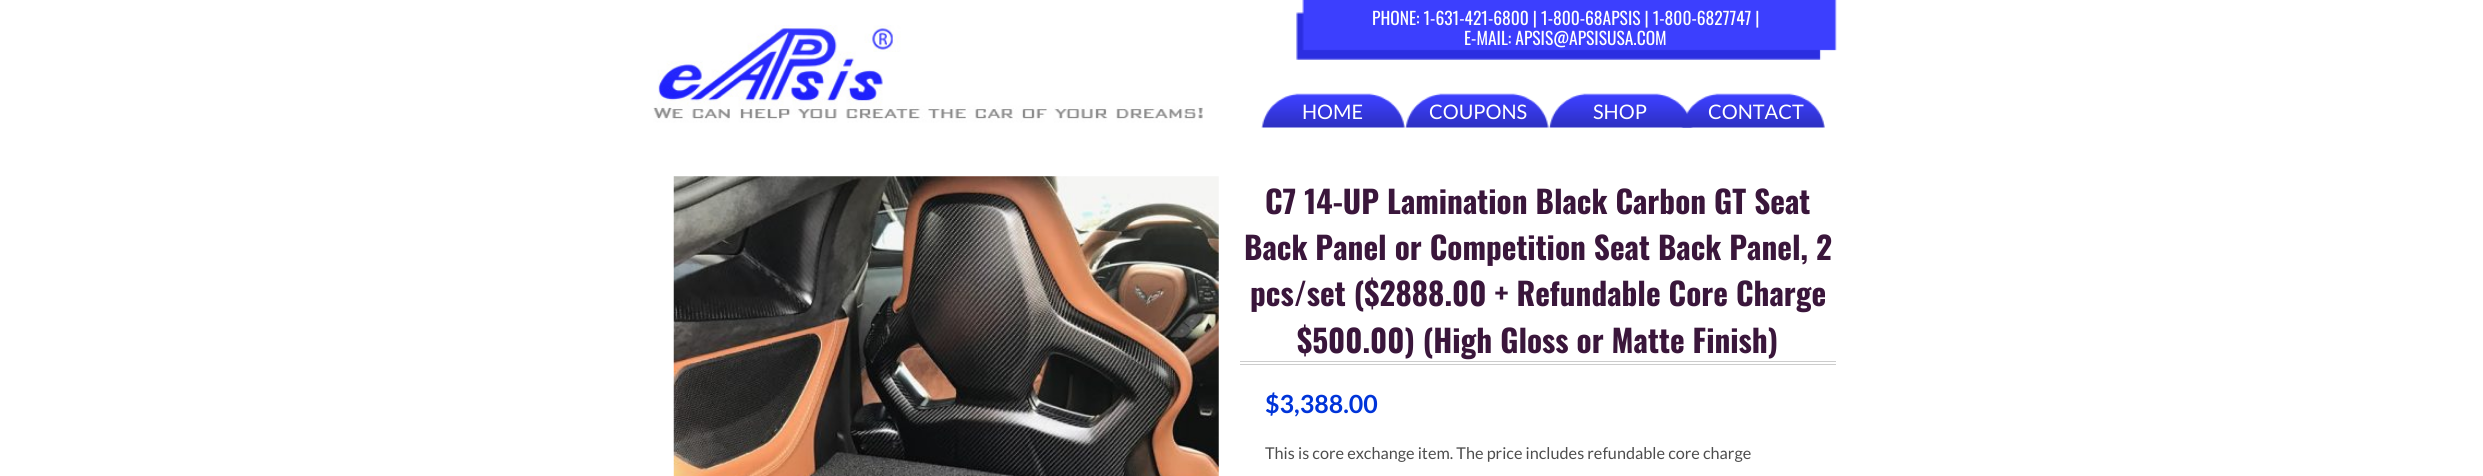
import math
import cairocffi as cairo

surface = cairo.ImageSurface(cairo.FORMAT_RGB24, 2483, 476)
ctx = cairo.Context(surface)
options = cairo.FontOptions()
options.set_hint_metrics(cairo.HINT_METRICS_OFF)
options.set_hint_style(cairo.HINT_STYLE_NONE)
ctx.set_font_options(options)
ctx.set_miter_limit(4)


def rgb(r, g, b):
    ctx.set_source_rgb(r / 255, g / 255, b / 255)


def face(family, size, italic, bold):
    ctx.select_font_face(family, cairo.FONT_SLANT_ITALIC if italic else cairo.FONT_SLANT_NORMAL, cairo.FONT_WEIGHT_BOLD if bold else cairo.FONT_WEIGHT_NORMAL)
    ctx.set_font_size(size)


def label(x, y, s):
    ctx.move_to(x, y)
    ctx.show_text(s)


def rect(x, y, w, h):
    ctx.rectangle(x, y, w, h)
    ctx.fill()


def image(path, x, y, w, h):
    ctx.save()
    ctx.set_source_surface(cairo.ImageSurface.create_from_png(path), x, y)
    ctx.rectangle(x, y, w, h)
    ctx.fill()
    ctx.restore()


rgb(255, 255, 255)
ctx.paint()
image('image0.png', 653, 25, 550, 98)
image('image1.png', 1296, 0, 541, 60)
face('Oswald', 17.5, 0, 0)
rgb(255, 255, 255)
label(1372, 25, 'PHONE: 1-631-421-6800 | 1-800-68APSIS | 1-800-6827747 |')
label(1464, 45, 'E-MAIL: APSIS@APSISUSA.COM')
image('image2.png', 1261, 93, 144, 35)
face('Lato', 20, 0, 0)
label(1302, 119, 'HOME')
image('image3.png', 1405, 93, 144, 35)
label(1429, 119, 'COUPONS')
image('image4.png', 1548, 93, 145, 35)
label(1593, 119, 'SHOP')
image('image5.png', 1681, 93, 144, 35)
label(1708, 119, 'CONTACT')
image('image6.png', 673, 176, 546, 300)
rgb(204, 204, 204)
rect(1240, 361, 596, 1)
rect(1240, 364, 596, 1)
face('Oswald', 31.25, 0, 1)
rgb(58, 22, 59)
label(1265, 214, 'C7 14-UP Lamination Black Carbon GT Seat')
label(1244, 260, 'Back Panel or Competition Seat Back Panel, 2')
label(1250, 306, 'pcs/set ($2888.00 + Refundable Core Charge')
label(1297, 353, '$500.00) (High Gloss or Matte Finish)')
face('Lato', 25, 0, 1)
rgb(0, 52, 217)
label(1265, 413, '$3,388.00')
face('Lato', 16.25, 0, 0)
rgb(77, 77, 77)
label(1265, 459, 'This is core exchange item. The price includes refundable core charge')
surface.write_to_png('render.png')
